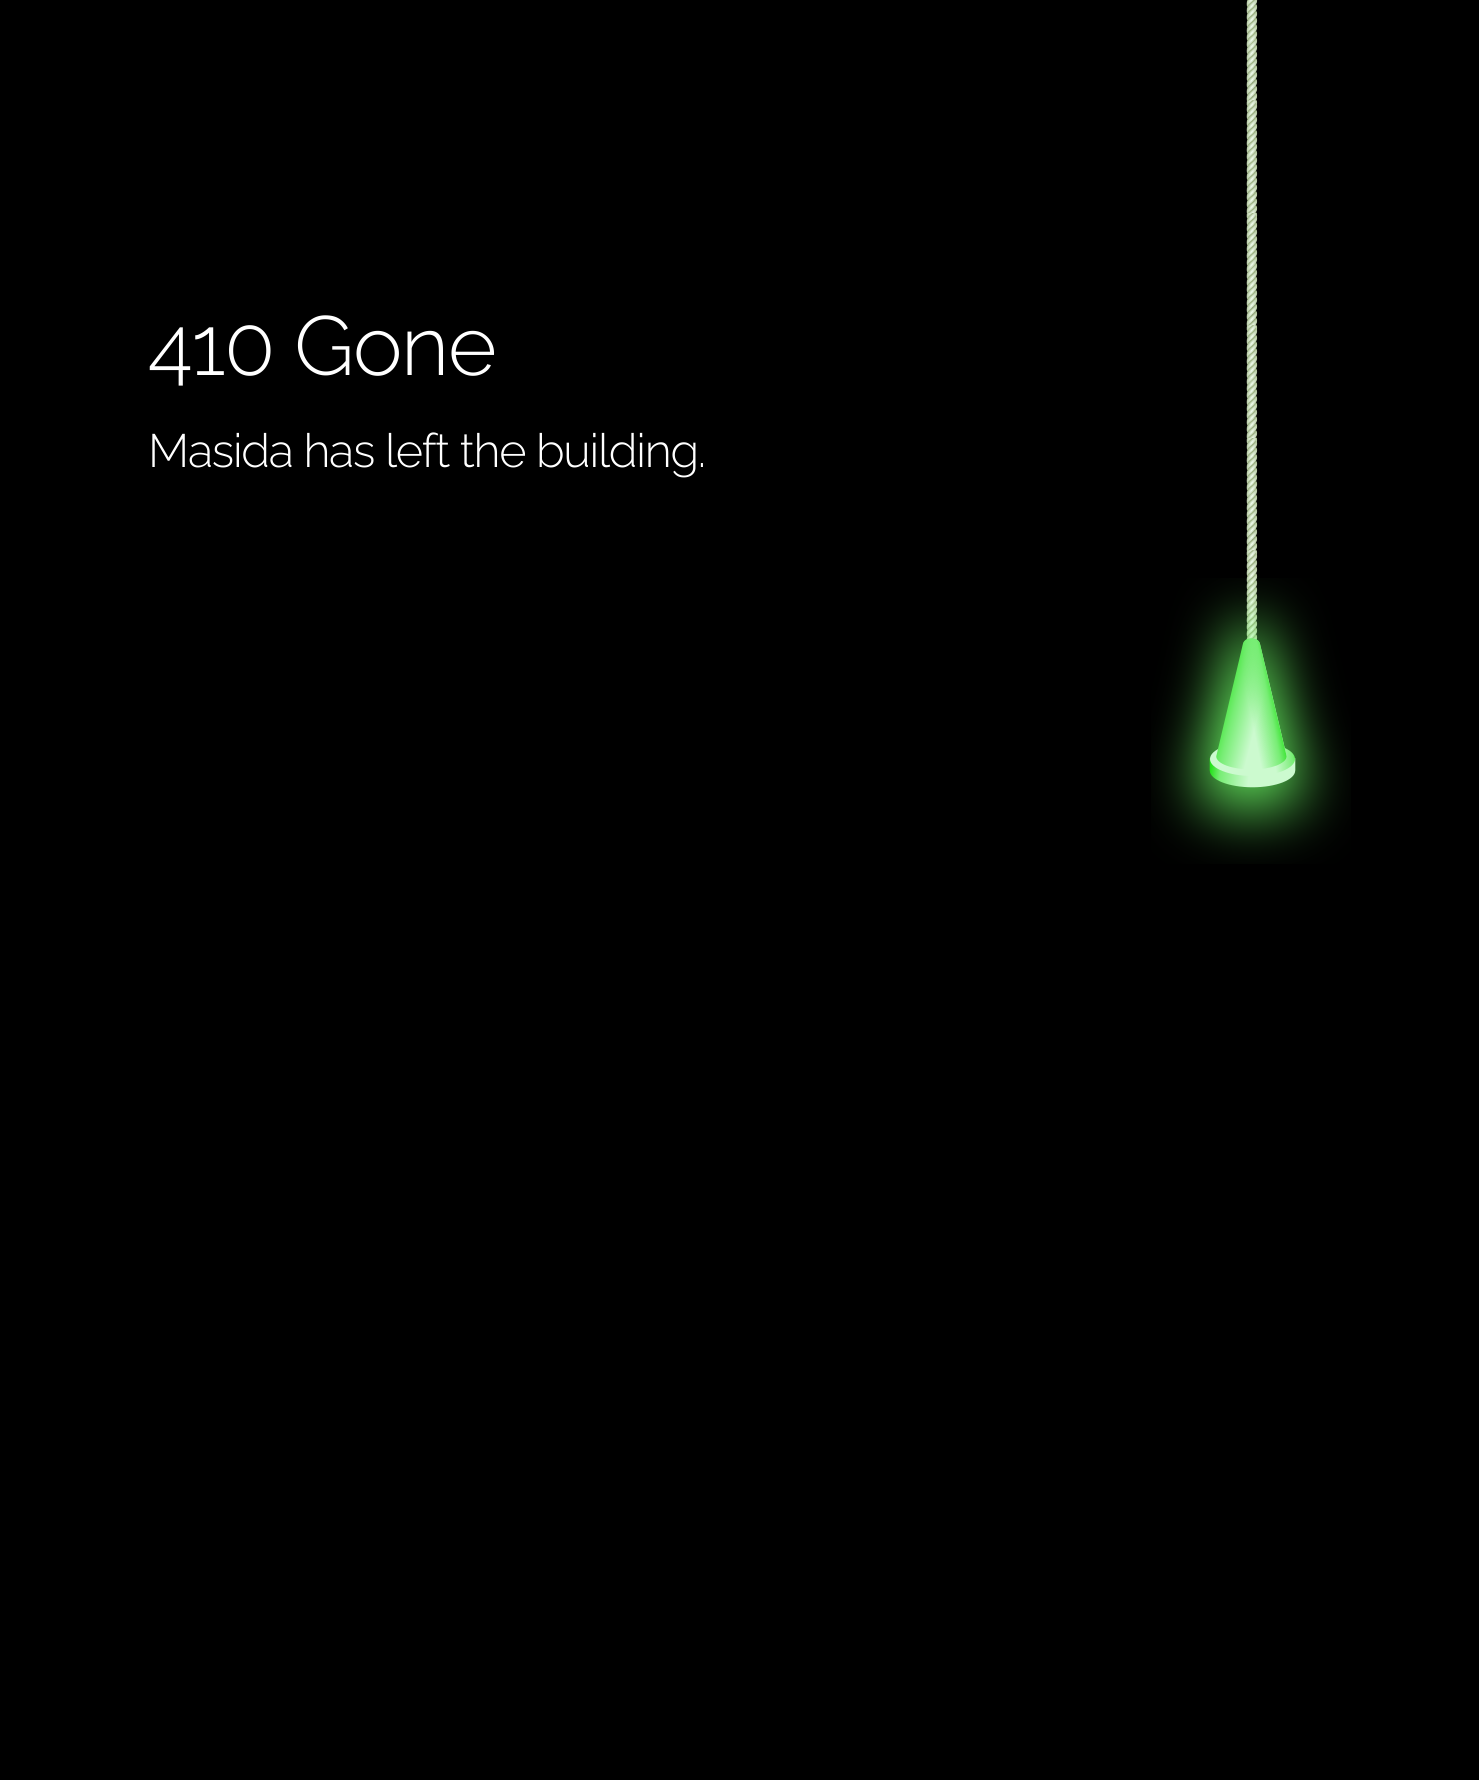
import math
import cairocffi as cairo

surface = cairo.ImageSurface(cairo.FORMAT_RGB24, 1479, 1780)
ctx = cairo.Context(surface)
options = cairo.FontOptions()
options.set_hint_metrics(cairo.HINT_METRICS_OFF)
options.set_hint_style(cairo.HINT_STYLE_NONE)
ctx.set_font_options(options)
ctx.set_miter_limit(4)


def rgb(r, g, b):
    ctx.set_source_rgb(r / 255, g / 255, b / 255)


def face(family, size, italic, bold):
    ctx.select_font_face(family, cairo.FONT_SLANT_ITALIC if italic else cairo.FONT_SLANT_NORMAL, cairo.FONT_WEIGHT_BOLD if bold else cairo.FONT_WEIGHT_NORMAL)
    ctx.set_font_size(size)


def tracked(x, y, s, letter, word):
    ctx.move_to(x, y)
    for ch in s:
        ctx.show_text(ch)
        ctx.rel_move_to(letter + word * (ch == ' '), 0)


def image(path, x, y, w, h):
    ctx.save()
    ctx.set_source_surface(cairo.ImageSurface.create_from_png(path), x, y)
    ctx.rectangle(x, y, w, h)
    ctx.fill()
    ctx.restore()


rgb(0, 0, 0)
ctx.paint()
face('Raleway Light', 83.5, 0, 0)
rgb(255, 255, 255)
tracked(148, 375, '410 Gone', -1.25, 0)
image('image0.png', 1246, 0, 12, 106)
image('image1.png', 1246, 100, 12, 119)
image('image2.png', 1246, 213, 12, 118)
image('image3.png', 1246, 325, 12, 119)
image('image4.png', 1246, 438, 12, 118)
image('image5.png', 1246, 550, 12, 90)
image('image6.png', 1151, 578, 200, 286)
image('image7.png', 1209, 638, 87, 150)
face('Raleway Light', 46.75, 0, 0)
tracked(148, 467, 'Masida has left the building.', -1.25, 0)
surface.write_to_png('render.png')
